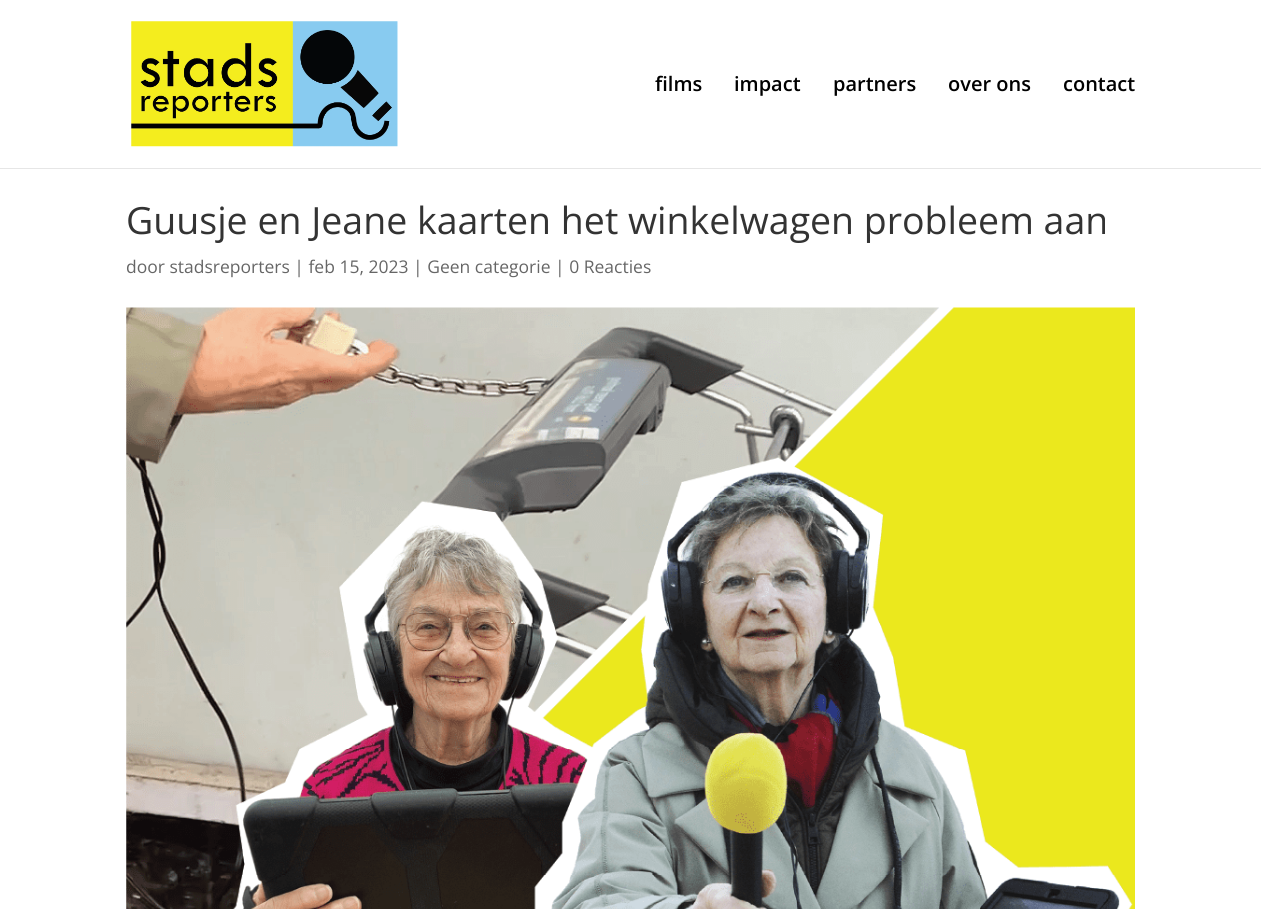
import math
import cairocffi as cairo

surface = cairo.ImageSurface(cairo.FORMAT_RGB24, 1261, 909)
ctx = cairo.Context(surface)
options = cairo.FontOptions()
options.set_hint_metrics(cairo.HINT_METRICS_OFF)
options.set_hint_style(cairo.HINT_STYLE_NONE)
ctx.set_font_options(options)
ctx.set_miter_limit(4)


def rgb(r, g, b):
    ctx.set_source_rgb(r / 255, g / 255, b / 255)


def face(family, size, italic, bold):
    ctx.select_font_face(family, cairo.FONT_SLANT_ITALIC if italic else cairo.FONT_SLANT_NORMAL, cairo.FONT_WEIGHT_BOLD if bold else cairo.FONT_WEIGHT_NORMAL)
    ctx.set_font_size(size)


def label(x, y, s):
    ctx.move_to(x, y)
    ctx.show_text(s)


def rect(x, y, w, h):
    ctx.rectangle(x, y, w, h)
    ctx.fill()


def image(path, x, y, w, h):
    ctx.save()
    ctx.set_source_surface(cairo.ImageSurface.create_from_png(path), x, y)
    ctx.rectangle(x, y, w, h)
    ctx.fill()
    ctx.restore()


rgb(255, 255, 255)
ctx.paint()
rgb(230, 230, 230)
rect(0, 168, 1261, 1)
image('image0.png', 131, 21, 267, 126)
face('Open Sans SemiBold', 20, 0, 0)
rgb(0, 0, 0)
label(655, 91, 'films')
label(734, 91, 'impact')
label(833, 91, 'partners')
label(948, 91, 'over ons')
label(1063, 91, 'contact')
face('Open Sans', 37.5, 0, 0)
rgb(51, 51, 51)
label(126, 234, 'Guusje en Jeane kaarten het winkelwagen probleem aan')
face('Open Sans', 17.5, 0, 0)
rgb(102, 102, 102)
label(126, 273, 'door stadsreporters | feb 15, 2023 | Geen categorie | 0 Reacties')
image('image1.png', 126, 307, 1009, 602)
surface.write_to_png('render.png')
